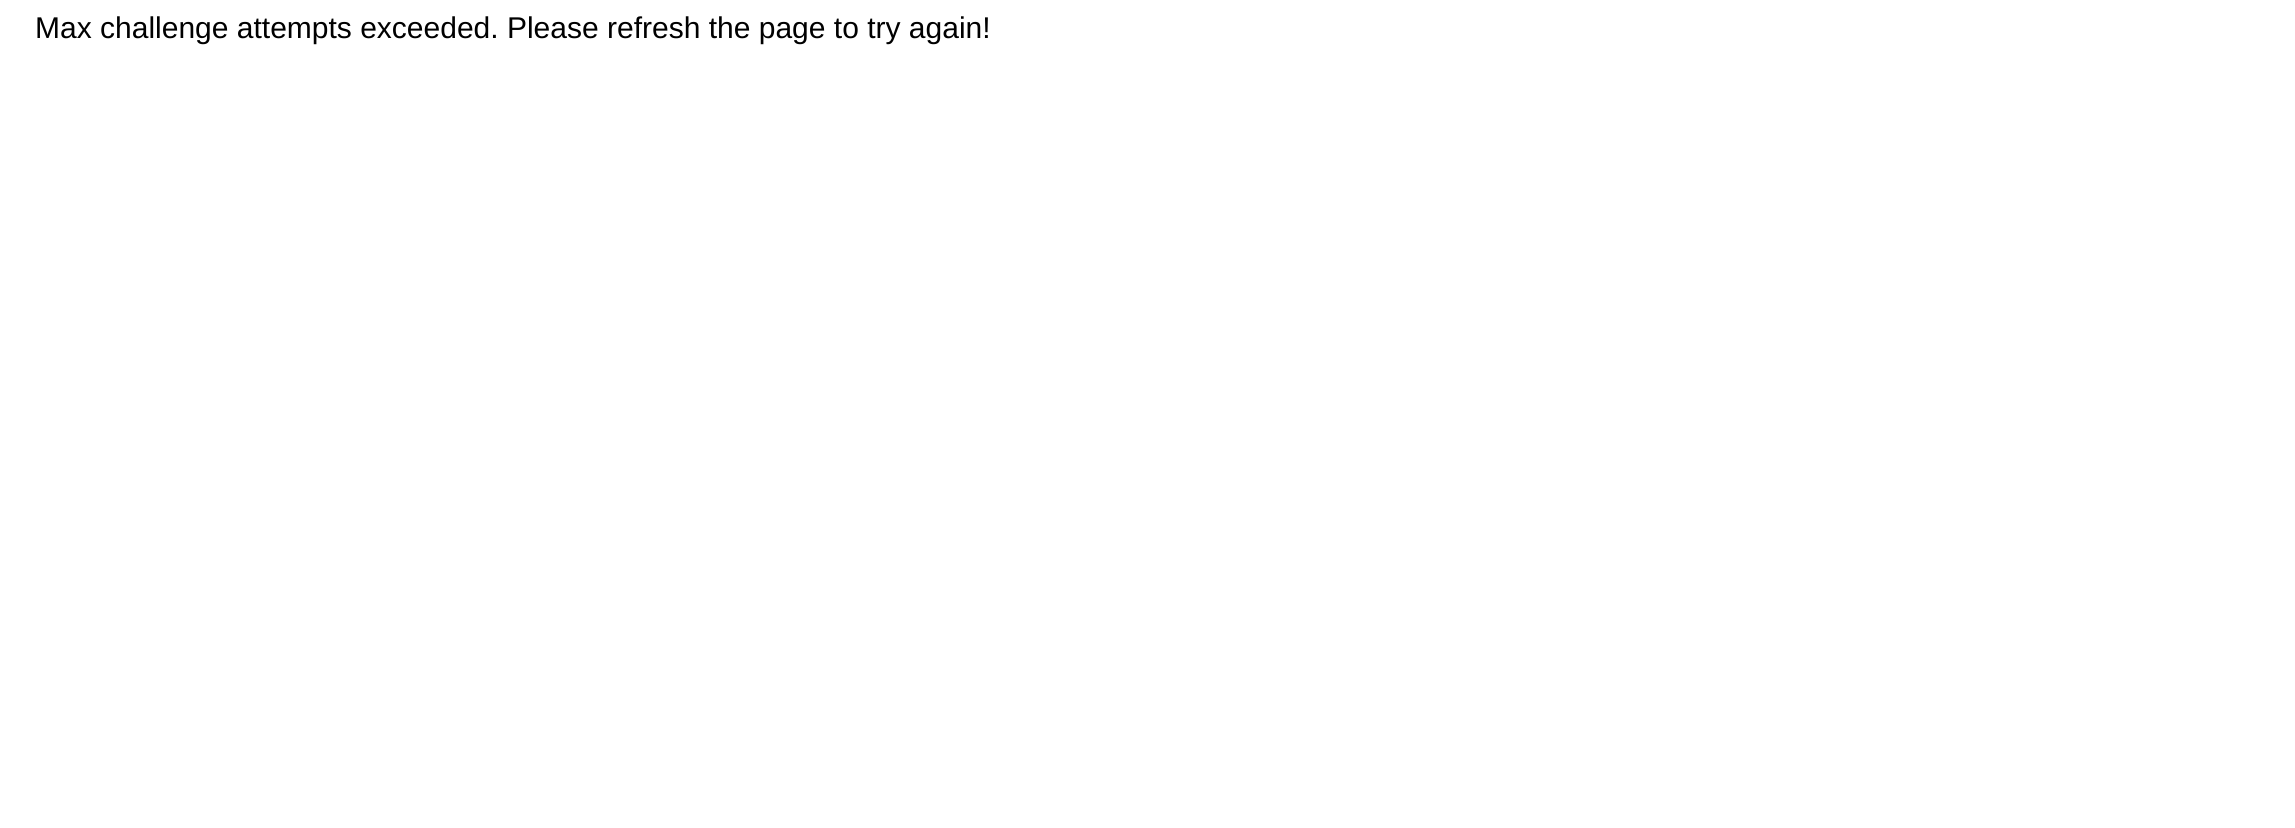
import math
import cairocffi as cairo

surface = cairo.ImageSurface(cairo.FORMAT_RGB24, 2295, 828)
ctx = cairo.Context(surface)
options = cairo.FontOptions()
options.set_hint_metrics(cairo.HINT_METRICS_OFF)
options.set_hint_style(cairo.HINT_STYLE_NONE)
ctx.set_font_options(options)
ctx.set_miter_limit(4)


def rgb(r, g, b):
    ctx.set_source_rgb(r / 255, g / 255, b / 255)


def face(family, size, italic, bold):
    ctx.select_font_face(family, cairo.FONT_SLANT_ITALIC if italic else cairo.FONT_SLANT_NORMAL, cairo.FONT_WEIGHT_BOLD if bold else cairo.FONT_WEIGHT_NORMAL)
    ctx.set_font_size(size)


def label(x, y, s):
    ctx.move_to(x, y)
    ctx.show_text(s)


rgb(255, 255, 255)
ctx.paint()
face('Liberation Sans', 30, 0, 0)
rgb(0, 0, 0)
label(35, 38, 'Max challenge attempts exceeded. Please refresh the page to try again!')
surface.write_to_png('render.png')
